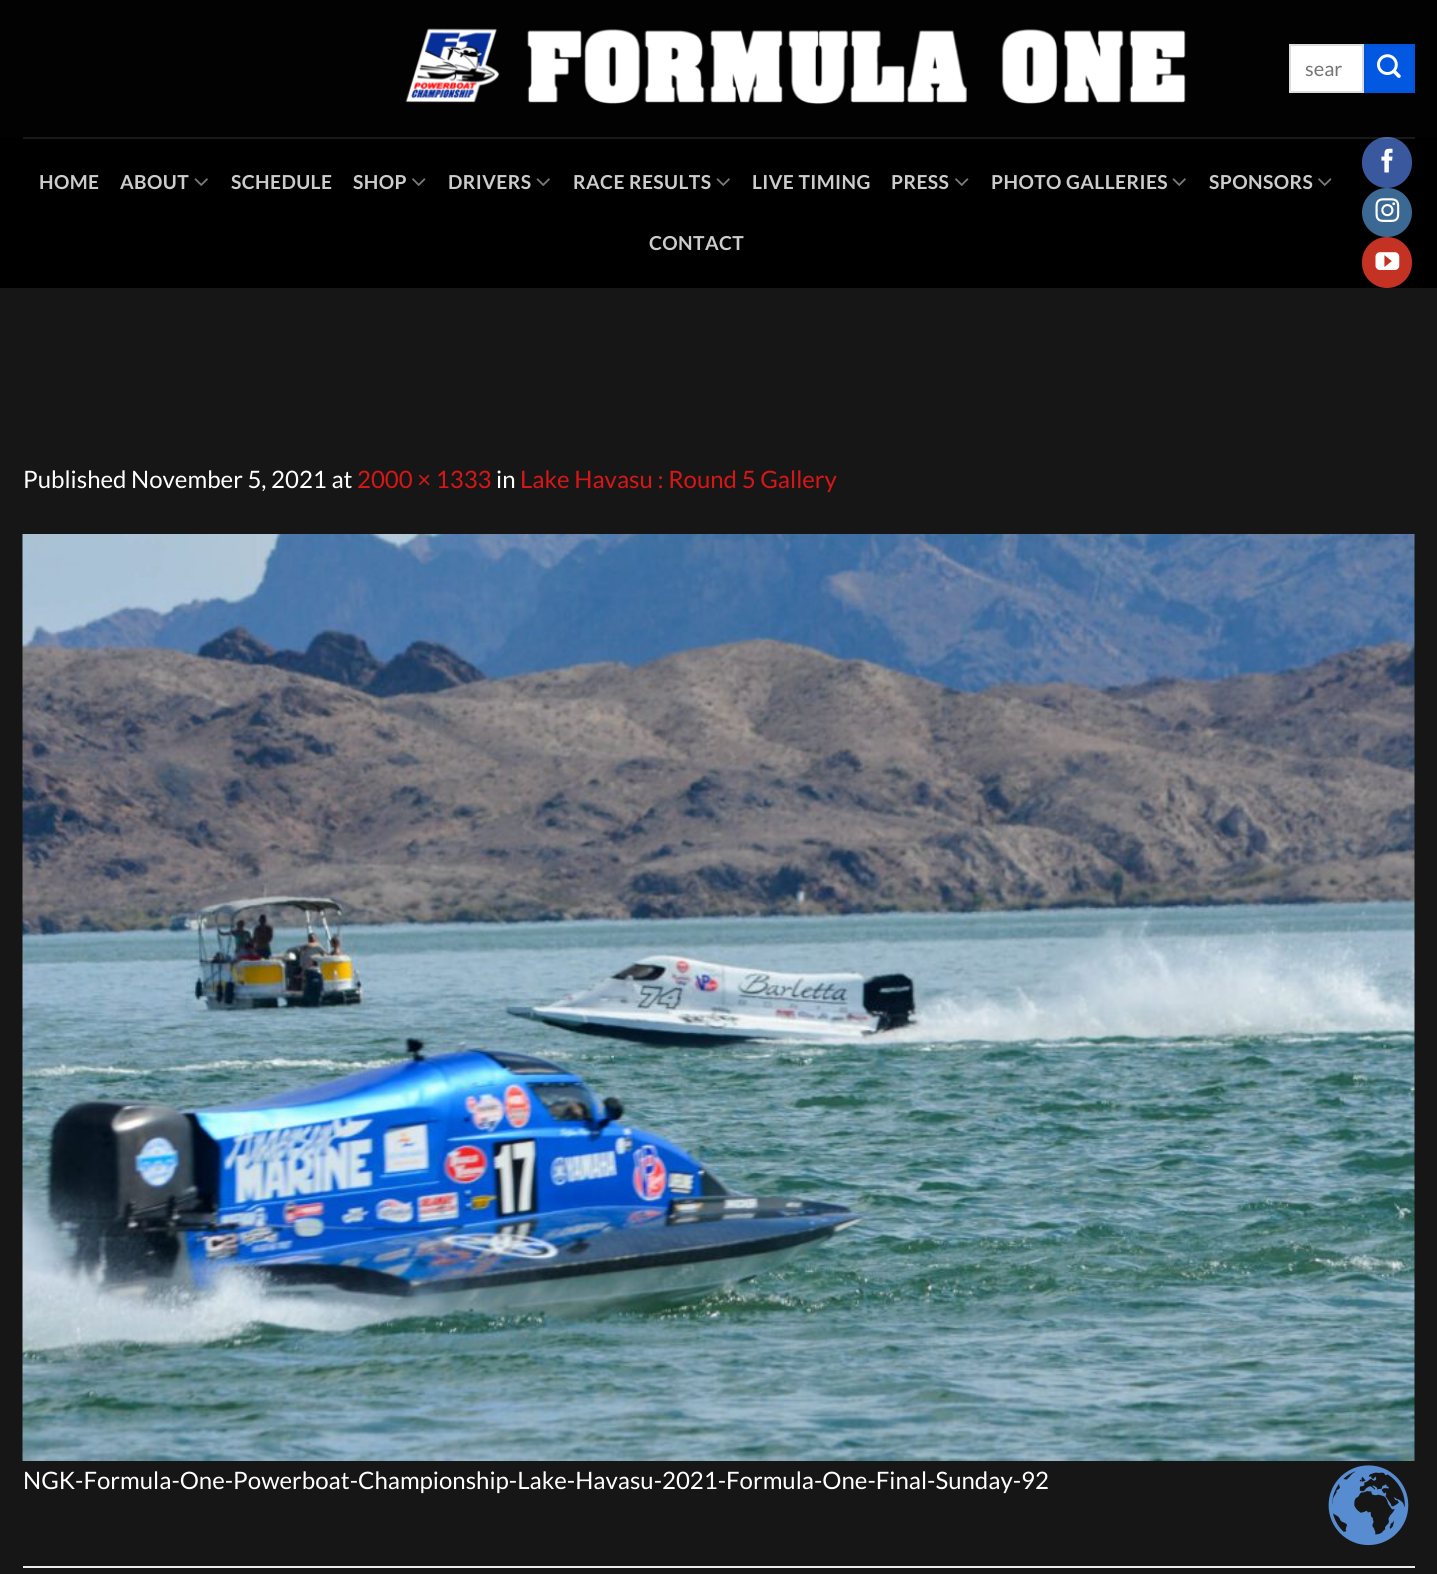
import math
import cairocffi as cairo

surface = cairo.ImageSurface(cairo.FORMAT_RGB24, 1437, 1574)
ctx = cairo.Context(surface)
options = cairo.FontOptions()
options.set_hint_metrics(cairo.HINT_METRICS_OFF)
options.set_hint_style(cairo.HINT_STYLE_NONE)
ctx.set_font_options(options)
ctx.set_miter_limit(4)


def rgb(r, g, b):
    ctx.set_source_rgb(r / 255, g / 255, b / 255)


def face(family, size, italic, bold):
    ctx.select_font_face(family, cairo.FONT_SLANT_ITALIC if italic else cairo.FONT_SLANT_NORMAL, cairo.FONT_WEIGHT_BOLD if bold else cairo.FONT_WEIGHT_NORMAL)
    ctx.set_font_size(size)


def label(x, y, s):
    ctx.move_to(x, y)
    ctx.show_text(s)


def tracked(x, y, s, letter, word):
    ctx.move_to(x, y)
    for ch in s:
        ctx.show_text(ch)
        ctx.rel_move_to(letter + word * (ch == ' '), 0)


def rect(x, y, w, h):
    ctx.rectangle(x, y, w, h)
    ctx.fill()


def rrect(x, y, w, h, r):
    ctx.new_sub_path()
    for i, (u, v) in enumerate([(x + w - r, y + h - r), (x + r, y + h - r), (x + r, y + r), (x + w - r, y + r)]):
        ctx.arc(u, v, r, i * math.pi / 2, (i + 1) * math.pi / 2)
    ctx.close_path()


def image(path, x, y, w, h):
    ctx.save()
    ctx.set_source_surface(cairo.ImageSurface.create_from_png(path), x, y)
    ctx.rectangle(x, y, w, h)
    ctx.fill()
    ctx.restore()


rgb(23, 22, 22)
ctx.paint()
rgb(2, 2, 2)
rect(0, 0, 1437, 137)
image('image0.png', 405, 28, 781, 77)
rgb(255, 255, 255)
ctx.rectangle(1290, 45, 73, 47)
ctx.fill_preserve()
rgb(221, 221, 221)
ctx.stroke()
face('Lato', 20, 0, 0)
rgb(117, 117, 117)
label(1305, 76, 'sear')
rgb(3, 88, 226)
ctx.rectangle(1365, 45, 49, 47)
ctx.fill_preserve()
rgb(3, 84, 215)
ctx.stroke()
image('image1.png', 1377, 54, 24, 24)
rgb(0, 0, 0)
rect(0, 137, 1437, 151)
rgb(58, 88, 157)
rrect(1363, 138, 48, 49, 24)
ctx.fill_preserve()
ctx.stroke()
ctx.set_source_rgba(1, 1, 1, 0.1)
rect(23, 137, 1392, 2)
face('Lato', 19.25, 0, 1)
rgb(204, 204, 204)
tracked(39, 189, 'HOME', 0.4, 0)
tracked(120, 189, 'ABOUT', 0.4, 0)
image('image2.png', 194, 178, 14, 8)
tracked(231, 189, 'SCHEDULE', 0.4, 0)
tracked(353, 189, 'SHOP', 0.4, 0)
image('image3.png', 412, 178, 14, 8)
tracked(448, 189, 'DRIVERS', 0.4, 0)
image('image2.png', 536, 178, 14, 8)
tracked(573, 189, 'RACE RESULTS', 0.4, 0)
image('image2.png', 716, 178, 14, 8)
tracked(752, 189, 'LIVE TIMING', 0.4, 0)
tracked(891, 189, 'PRESS', 0.4, 0)
image('image3.png', 955, 178, 14, 8)
tracked(991, 189, 'PHOTO GALLERIES', 0.4, 0)
image('image2.png', 1172, 178, 14, 8)
tracked(1209, 189, 'SPONSORS', 0.4, 0)
image('image3.png', 1318, 178, 14, 8)
tracked(649, 250, 'CONTACT', 0.4, 0)
image('image4.png', 1381, 148, 12, 25)
rgb(59, 105, 148)
rrect(1363, 189, 48, 47, 23.5)
ctx.fill_preserve()
ctx.stroke()
image('image5.png', 1375, 198, 25, 24)
rgb(195, 50, 35)
rrect(1363, 238, 48, 49, 24)
ctx.fill_preserve()
ctx.stroke()
image('image6.png', 1375, 252, 25, 18)
face('Lato', 24, 0, 0)
rgb(255, 255, 255)
label(23, 488, 'Published November 5, 2021 at')
rgb(216, 22, 22)
label(357, 488, '2000 × 1333')
rgb(255, 255, 255)
label(496, 488, 'in')
rgb(216, 22, 22)
label(520, 488, 'Lake Havasu : Round 5 Gallery')
image('image7.png', 22, 534, 1393, 927)
rgb(255, 255, 255)
label(23, 1489, 'NGK-Formula-One-Powerboat-Championship-Lake-Havasu-2021-Formula-One-Final-Sunday-92')
rgb(236, 236, 236)
rect(23, 1566, 1392, 2)
image('image8.png', 1328, 1465, 81, 81)
surface.write_to_png('render.png')
